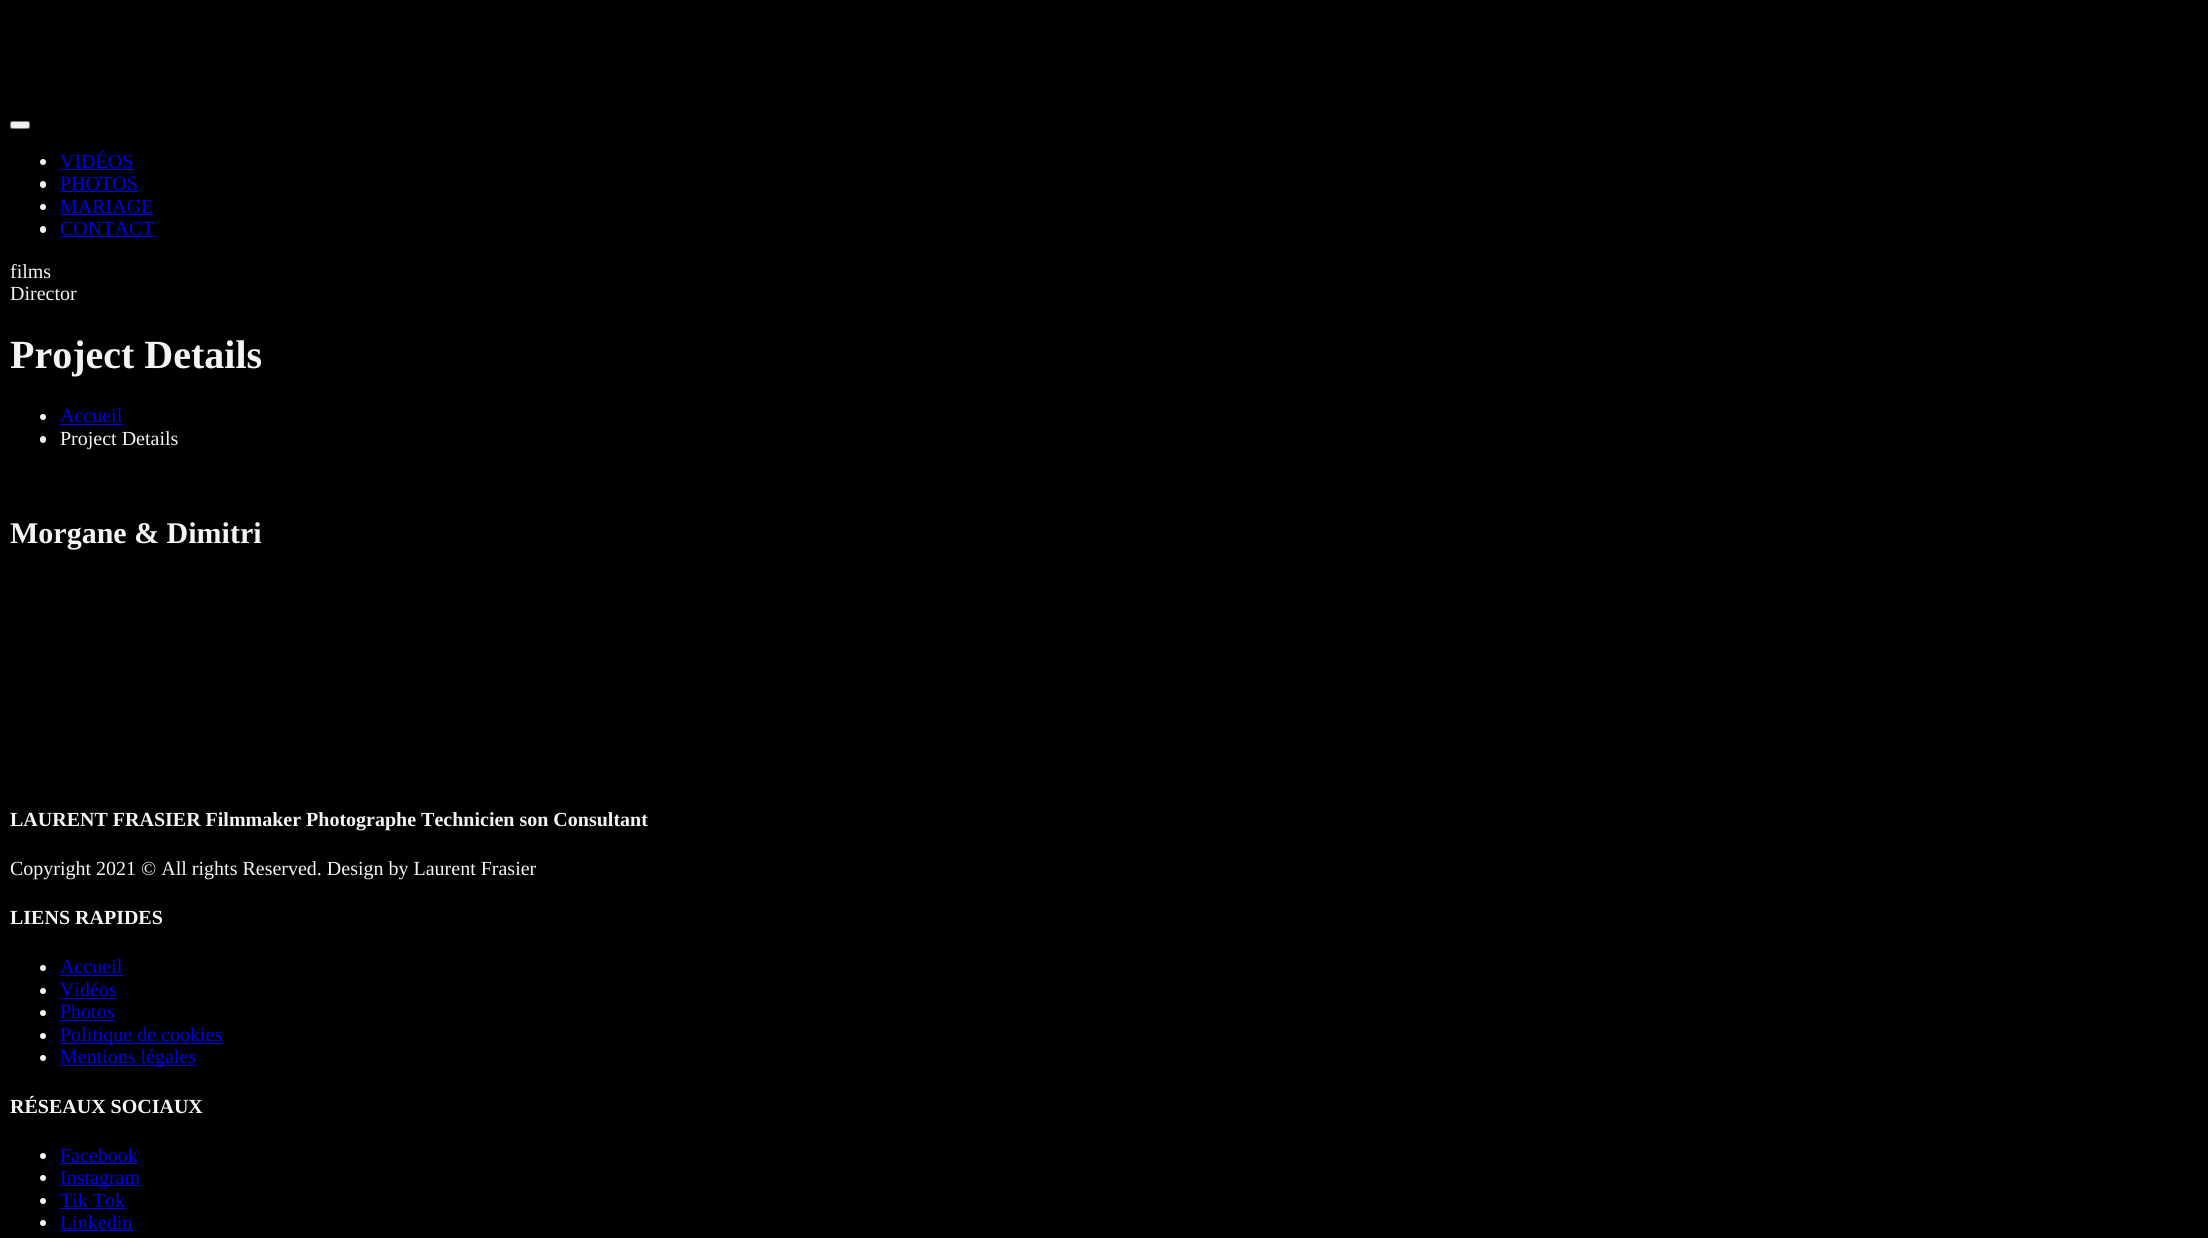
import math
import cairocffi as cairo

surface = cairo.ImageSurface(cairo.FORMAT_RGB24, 2208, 1238)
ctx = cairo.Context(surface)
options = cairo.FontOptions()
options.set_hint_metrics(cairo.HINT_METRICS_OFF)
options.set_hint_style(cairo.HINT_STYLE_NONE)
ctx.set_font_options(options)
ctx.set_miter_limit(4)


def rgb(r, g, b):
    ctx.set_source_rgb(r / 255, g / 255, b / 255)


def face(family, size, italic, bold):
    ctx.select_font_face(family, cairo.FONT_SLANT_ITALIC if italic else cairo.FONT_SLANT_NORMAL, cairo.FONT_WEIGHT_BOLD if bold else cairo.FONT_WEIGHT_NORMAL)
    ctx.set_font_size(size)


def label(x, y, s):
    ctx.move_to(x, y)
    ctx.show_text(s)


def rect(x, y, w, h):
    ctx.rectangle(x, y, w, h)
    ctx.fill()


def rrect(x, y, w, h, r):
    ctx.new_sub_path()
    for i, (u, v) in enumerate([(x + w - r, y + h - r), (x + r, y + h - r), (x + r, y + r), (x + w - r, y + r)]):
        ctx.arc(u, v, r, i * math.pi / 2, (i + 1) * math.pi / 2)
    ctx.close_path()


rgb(0, 0, 0)
ctx.paint()
rgb(239, 239, 239)
rrect(10.5, 121.5, 19, 7, 2)
ctx.fill_preserve()
rgb(118, 118, 118)
ctx.set_line_width(1)
ctx.stroke()
rgb(244, 244, 244)
ctx.arc(43, 162, 3, 0, 2 * math.pi)
ctx.fill()
face('Liberation Serif', 20, 0, 0)
rgb(0, 0, 238)
label(60, 168, 'VIDÉOS')
rect(60, 169, 74, 1)
rgb(244, 244, 244)
rrect(40, 181, 6, 7, 3)
ctx.fill()
rgb(0, 0, 238)
label(60, 190, 'PHOTOS')
rect(60, 191, 78, 1)
rgb(244, 244, 244)
ctx.new_path()
ctx.arc(43, 207, 3, 0, 2 * math.pi)
ctx.fill()
rgb(0, 0, 238)
label(60, 213, 'MARIAGE')
rect(60, 214, 94, 1)
rgb(244, 244, 244)
rrect(40, 226, 6, 7, 3)
ctx.fill()
rgb(0, 0, 238)
label(60, 235, 'CONTACT')
rect(60, 236, 95, 1)
rgb(244, 244, 244)
label(10, 278, 'films')
label(10, 300, 'Director')
face('Liberation Serif', 40, 0, 1)
label(10, 368, 'Project Details')
ctx.new_path()
ctx.arc(43, 417, 3, 0, 2 * math.pi)
ctx.fill()
face('Liberation Serif', 20, 0, 0)
rgb(0, 0, 238)
label(60, 422, 'Accueil')
rect(60, 424, 63, 1)
rgb(244, 244, 244)
rrect(40, 436, 6, 7, 3)
ctx.fill()
label(60, 445, 'Project Details')
face('Liberation Serif', 30, 0, 1)
label(10, 543, 'Morgane & Dimitri')
face('Liberation Serif', 20, 0, 1)
label(10, 826, 'LAURENT FRASIER Filmmaker Photographe Technicien son Consultant')
face('Liberation Serif', 20, 0, 0)
label(10, 875, 'Copyright 2021 © All rights Reserved. Design by Laurent Frasier')
face('Liberation Serif', 20, 0, 1)
label(10, 924, 'LIENS RAPIDES')
ctx.new_path()
ctx.arc(43, 968, 3, 0, 2 * math.pi)
ctx.fill()
face('Liberation Serif', 20, 0, 0)
rgb(0, 0, 238)
label(60, 973, 'Accueil')
rect(60, 975, 63, 1)
rgb(244, 244, 244)
ctx.new_path()
ctx.arc(43, 991, 3, 0, 2 * math.pi)
ctx.fill()
rgb(0, 0, 238)
label(60, 996, 'Vidéos')
rect(60, 998, 56, 1)
rgb(244, 244, 244)
ctx.new_path()
ctx.arc(43, 1013, 3, 0, 2 * math.pi)
ctx.fill()
rgb(0, 0, 238)
label(60, 1018, 'Photos')
rect(60, 1020, 55, 1)
rgb(244, 244, 244)
ctx.new_path()
ctx.arc(43, 1036, 3, 0, 2 * math.pi)
ctx.fill()
rgb(0, 0, 238)
rect(60, 1043, 163, 1)
label(60, 1041, 'Politique de cookies')
rgb(244, 244, 244)
ctx.new_path()
ctx.arc(43, 1058, 3, 0, 2 * math.pi)
ctx.fill()
rgb(0, 0, 238)
rect(60, 1065, 136, 1)
label(60, 1063, 'Mentions légales')
face('Liberation Serif', 20, 0, 1)
rgb(244, 244, 244)
label(10, 1113, 'RÉSEAUX SOCIAUX')
ctx.new_path()
ctx.arc(43, 1156, 3, 0, 2 * math.pi)
ctx.fill()
face('Liberation Serif', 20, 0, 0)
rgb(0, 0, 238)
label(60, 1162, 'Facebook')
rect(60, 1163, 78, 1)
rgb(244, 244, 244)
ctx.new_path()
ctx.arc(43, 1178, 3, 0, 2 * math.pi)
ctx.fill()
rgb(0, 0, 238)
rect(60, 1185, 80, 1)
label(60, 1184, 'Instagram')
rgb(244, 244, 244)
ctx.new_path()
ctx.arc(43, 1201, 3, 0, 2 * math.pi)
ctx.fill()
rgb(0, 0, 238)
label(60, 1207, 'Tik Tok')
rect(60, 1208, 65, 1)
rgb(244, 244, 244)
ctx.new_path()
ctx.arc(43, 1223, 3, 0, 2 * math.pi)
ctx.fill()
rgb(0, 0, 238)
label(60, 1229, 'Linkedin')
rect(60, 1230, 73, 1)
surface.write_to_png('render.png')
